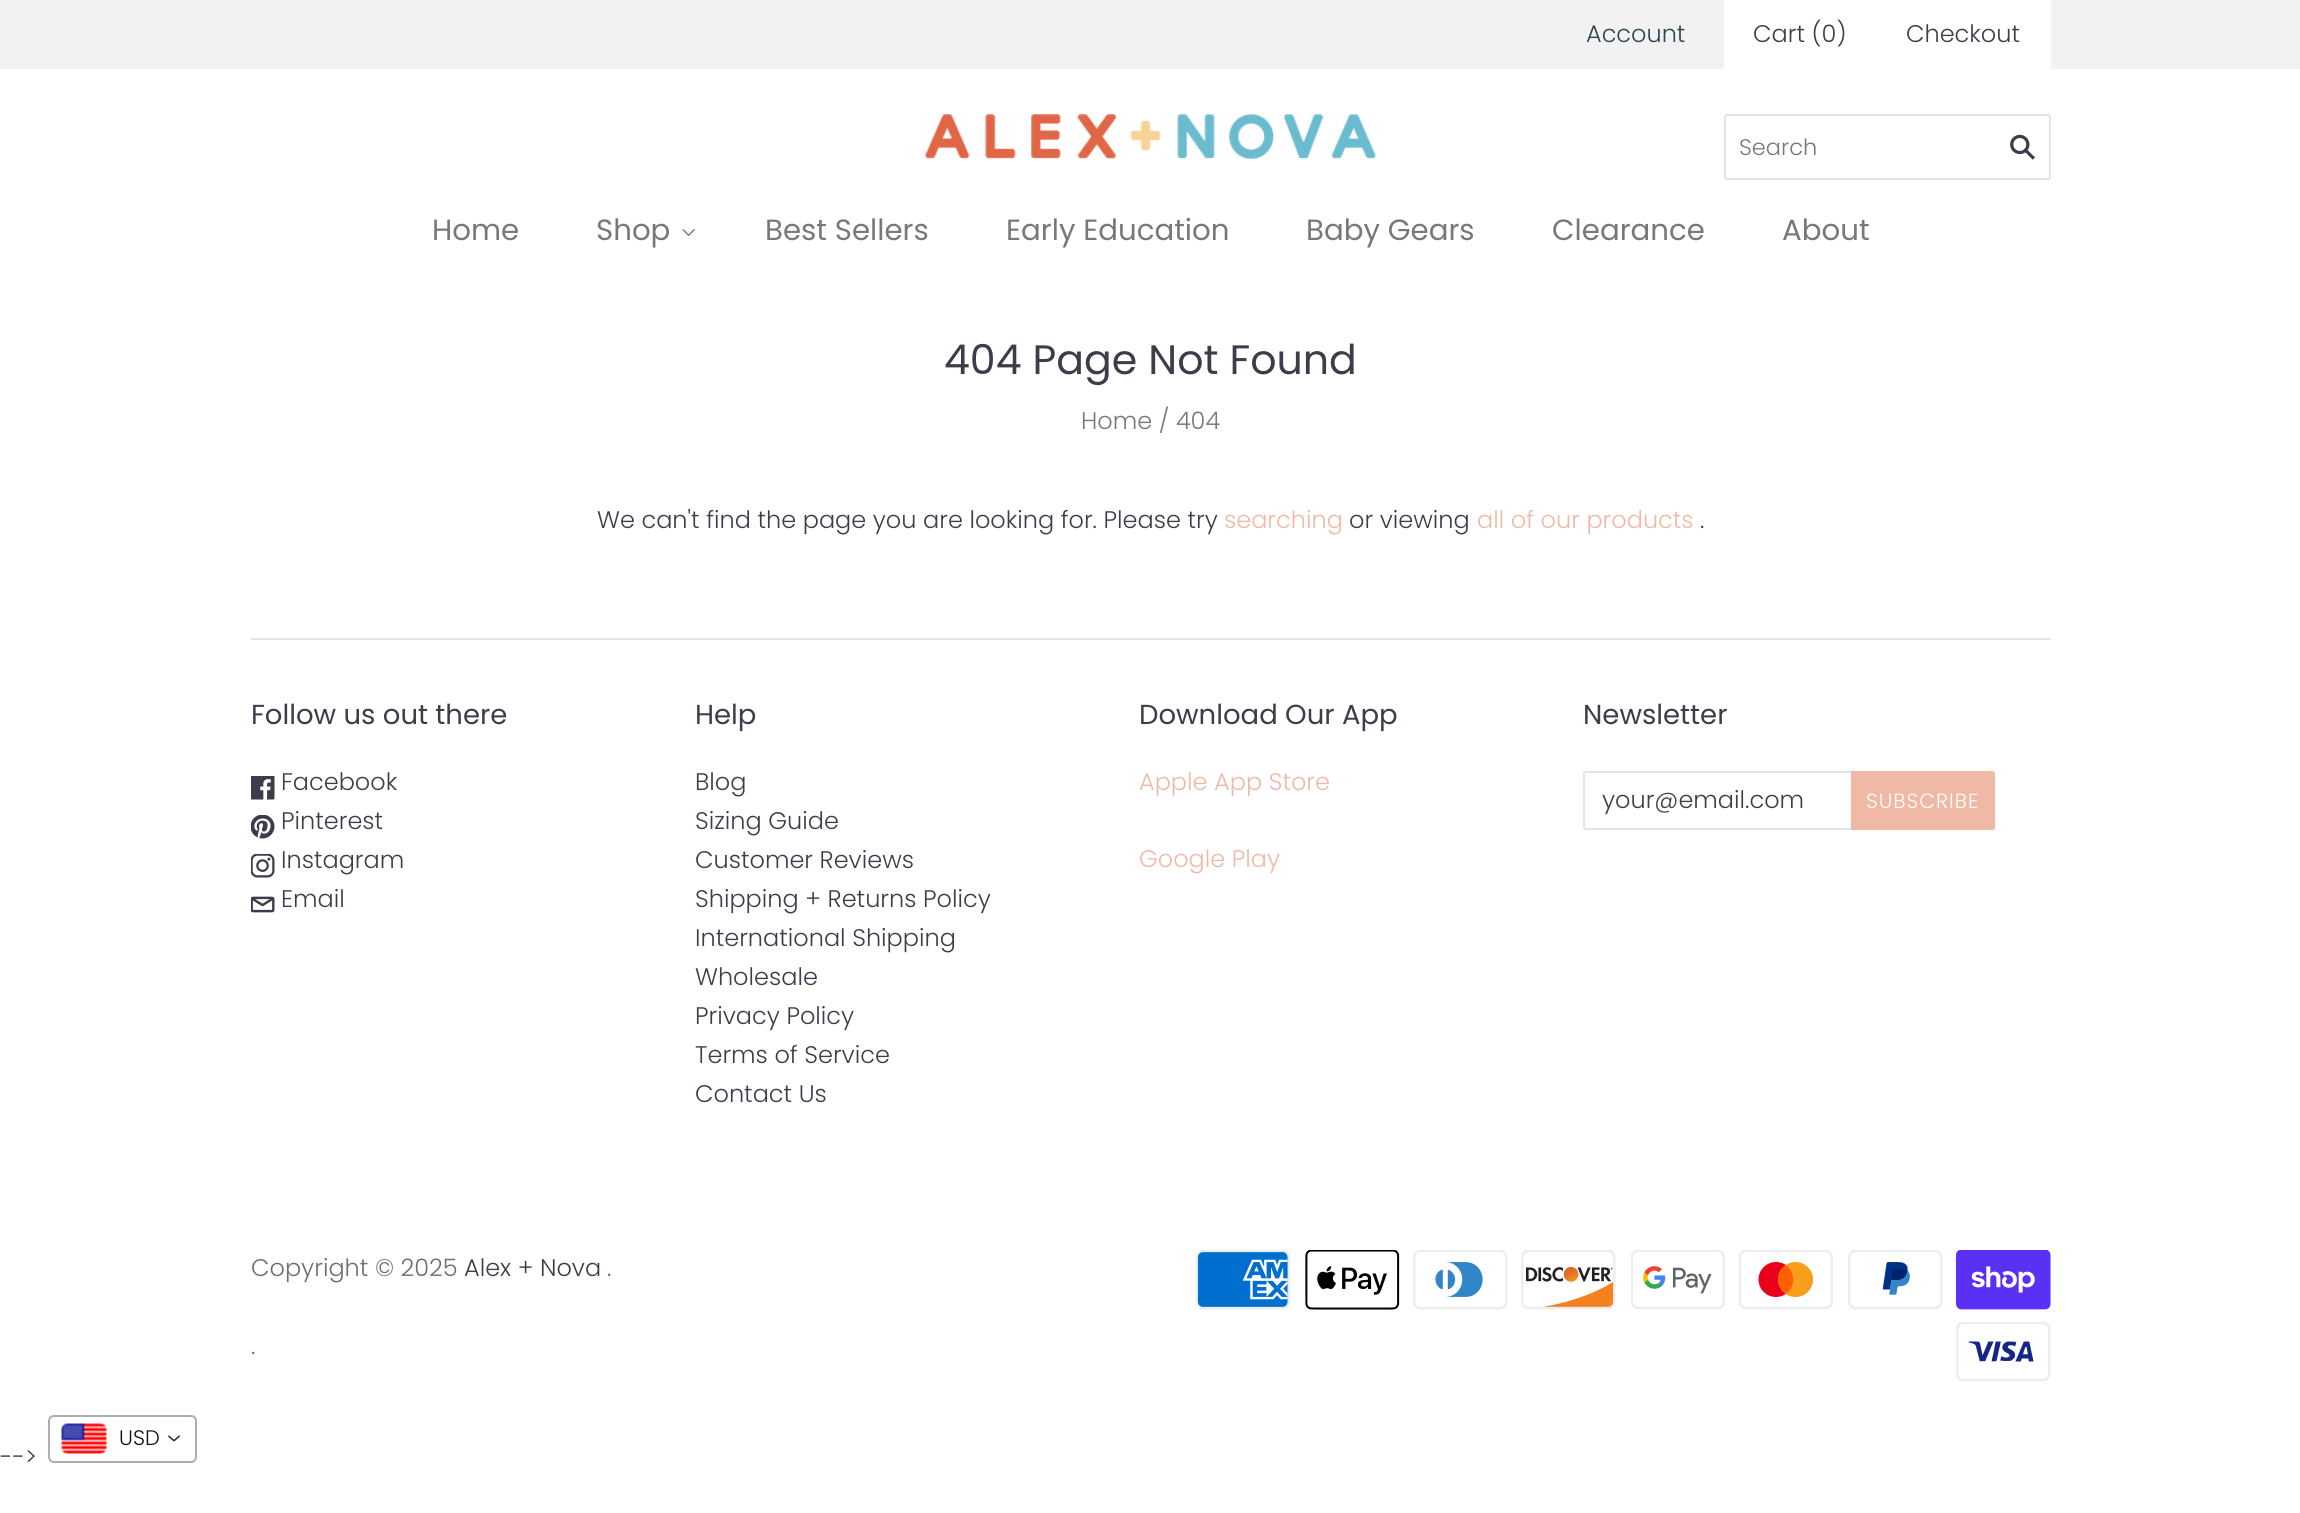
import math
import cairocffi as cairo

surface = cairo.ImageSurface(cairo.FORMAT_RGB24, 2300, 1513)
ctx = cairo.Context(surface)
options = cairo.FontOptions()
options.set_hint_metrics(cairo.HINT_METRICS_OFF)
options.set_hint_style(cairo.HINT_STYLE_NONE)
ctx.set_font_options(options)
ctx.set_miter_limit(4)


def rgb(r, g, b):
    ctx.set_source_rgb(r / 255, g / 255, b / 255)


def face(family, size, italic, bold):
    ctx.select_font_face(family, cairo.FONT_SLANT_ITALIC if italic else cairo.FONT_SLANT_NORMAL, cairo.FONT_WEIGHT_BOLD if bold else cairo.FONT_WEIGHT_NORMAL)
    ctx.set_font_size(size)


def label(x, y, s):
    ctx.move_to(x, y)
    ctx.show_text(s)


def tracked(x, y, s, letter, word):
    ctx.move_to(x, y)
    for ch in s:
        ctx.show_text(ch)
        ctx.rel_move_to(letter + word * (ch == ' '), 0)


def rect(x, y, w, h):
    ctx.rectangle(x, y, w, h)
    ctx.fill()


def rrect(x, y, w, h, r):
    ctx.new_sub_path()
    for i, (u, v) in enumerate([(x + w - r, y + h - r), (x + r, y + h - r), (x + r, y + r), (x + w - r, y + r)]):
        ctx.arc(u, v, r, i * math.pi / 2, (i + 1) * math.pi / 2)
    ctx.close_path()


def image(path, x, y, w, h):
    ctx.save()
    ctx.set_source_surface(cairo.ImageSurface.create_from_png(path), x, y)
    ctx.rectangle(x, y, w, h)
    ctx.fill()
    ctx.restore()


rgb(255, 255, 255)
ctx.paint()
rgb(242, 242, 242)
rect(0, 0, 2300, 69)
face('Poppins Light', 24, 0, 0)
rgb(45, 70, 79)
label(1586, 42, 'Account')
rgb(255, 255, 255)
rect(1724, 0, 327, 69)
rgb(64, 59, 74)
label(1753, 42, 'Cart (0)')
label(1906, 42, 'Checkout')
image('image0.png', 925, 114, 451, 45)
rrect(1725, 115, 325, 64, 2)
rgb(228, 228, 228)
ctx.stroke()
face('Poppins Light', 22.5, 0, 0)
rgb(120, 120, 120)
label(1739, 155, 'Search')
image('image1.png', 2010, 134, 25, 26)
face('Poppins', 29.25, 0, 0)
label(432, 240, 'Home')
label(596, 240, 'Shop')
image('image2.png', 682, 229, 13, 7)
label(765, 240, 'Best Sellers')
label(1006, 240, 'Early Education')
label(1306, 240, 'Baby Gears')
label(1552, 240, 'Clearance')
label(1782, 240, 'About')
face('Poppins', 41.1, 0, 0)
rgb(64, 59, 74)
label(944, 374, '404 Page Not Found')
face('Poppins Light', 24, 0, 0)
rgb(120, 120, 120)
label(1081, 429, 'Home / 404')
rgb(64, 59, 74)
label(597, 528, 'We can\'t find the page you are looking for. Please try')
rgb(239, 185, 165)
label(1224, 528, 'searching')
rgb(64, 59, 74)
label(1349, 528, 'or viewing')
rgb(239, 185, 165)
label(1477, 528, 'all of our products')
rgb(64, 59, 74)
label(1700, 528, '.')
rgb(228, 228, 228)
rect(251, 638, 1800, 2)
face('Poppins', 27.5, 0, 0)
rgb(64, 59, 74)
label(251, 724, 'Follow us out there')
image('image3.png', 251, 776, 24, 24)
face('Poppins Light', 24, 0, 0)
label(281, 790, 'Facebook')
image('image4.png', 251, 815, 24, 24)
label(281, 829, 'Pinterest')
image('image5.png', 251, 854, 24, 24)
label(281, 868, 'Instagram')
image('image6.png', 251, 896, 24, 17)
label(281, 907, 'Email')
face('Poppins', 27.5, 0, 0)
label(695, 724, 'Help')
face('Poppins Light', 24, 0, 0)
label(695, 790, 'Blog')
label(695, 829, 'Sizing Guide')
label(695, 868, 'Customer Reviews')
label(695, 907, 'Shipping + Returns Policy')
label(695, 946, 'International Shipping')
label(695, 985, 'Wholesale')
label(695, 1024, 'Privacy Policy')
label(695, 1063, 'Terms of Service')
label(695, 1102, 'Contact Us')
face('Poppins', 27.5, 0, 0)
label(1139, 724, 'Download Our App')
face('Poppins Light', 24, 0, 0)
rgb(239, 185, 165)
label(1139, 790, 'Apple App Store')
label(1139, 867, 'Google Play')
face('Poppins', 27.5, 0, 0)
rgb(64, 59, 74)
label(1583, 724, 'Newsletter')
rrect(1584, 772, 410, 57, 2)
rgb(228, 228, 228)
ctx.stroke()
face('Poppins Light', 24, 0, 0)
rgb(64, 59, 74)
label(1602, 808, 'your@email.com')
rgb(239, 185, 165)
ctx.new_path()
ctx.move_to(1851, 771)
ctx.line_to(1992, 771)
ctx.curve_to(1993.5, 771, 1995, 772.5, 1995, 774)
ctx.line_to(1995, 827)
ctx.curve_to(1995, 828.5, 1993.5, 830, 1992, 830)
ctx.line_to(1851, 830)
ctx.close_path()
ctx.fill()
face('Poppins Light', 20.5, 0, 0)
rgb(255, 255, 255)
tracked(1866, 808, 'SUBSCRIBE', 1, 0)
face('Poppins Light', 24, 0, 0)
rgb(111, 108, 119)
label(251, 1276, 'Copyright © 2025')
rgb(64, 59, 74)
label(464, 1276, 'Alex + Nova')
rgb(111, 108, 119)
label(607, 1276, '.')
label(251, 1354, '.')
image('image7.png', 1196, 1250, 94, 60)
image('image8.png', 1305, 1250, 95, 60)
image('image9.png', 1413, 1250, 95, 60)
image('image10.png', 1521, 1250, 95, 60)
image('image11.png', 1631, 1250, 94, 60)
image('image12.png', 1739, 1250, 94, 60)
image('image13.png', 1848, 1250, 95, 60)
image('image14.png', 1956, 1250, 95, 60)
image('image15.png', 1956, 1322, 95, 60)
rrect(49, 1416, 147, 46, 5)
rgb(174, 174, 174)
ctx.stroke()
image('image16.png', 61, 1423, 46, 31)
face('Poppins Light', 21, 0, 0)
rgb(17, 17, 17)
label(119, 1445, 'USD')
image('image17.png', 168, 1435, 12, 7)
face('Poppins Light', 24, 0, 0)
rgb(64, 59, 74)
label(0, 1465, '-->')
surface.write_to_png('render.png')
